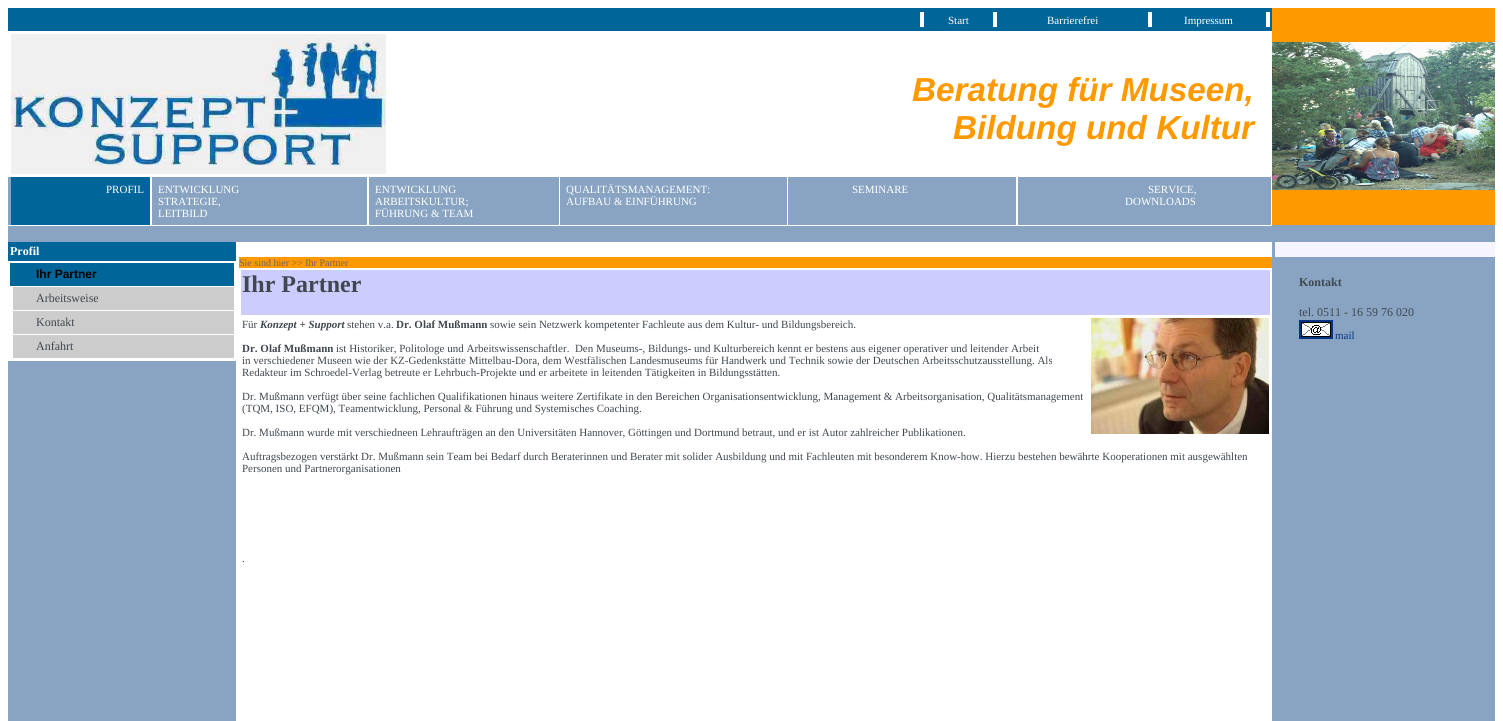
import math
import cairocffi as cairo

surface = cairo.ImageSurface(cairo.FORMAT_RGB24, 1503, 721)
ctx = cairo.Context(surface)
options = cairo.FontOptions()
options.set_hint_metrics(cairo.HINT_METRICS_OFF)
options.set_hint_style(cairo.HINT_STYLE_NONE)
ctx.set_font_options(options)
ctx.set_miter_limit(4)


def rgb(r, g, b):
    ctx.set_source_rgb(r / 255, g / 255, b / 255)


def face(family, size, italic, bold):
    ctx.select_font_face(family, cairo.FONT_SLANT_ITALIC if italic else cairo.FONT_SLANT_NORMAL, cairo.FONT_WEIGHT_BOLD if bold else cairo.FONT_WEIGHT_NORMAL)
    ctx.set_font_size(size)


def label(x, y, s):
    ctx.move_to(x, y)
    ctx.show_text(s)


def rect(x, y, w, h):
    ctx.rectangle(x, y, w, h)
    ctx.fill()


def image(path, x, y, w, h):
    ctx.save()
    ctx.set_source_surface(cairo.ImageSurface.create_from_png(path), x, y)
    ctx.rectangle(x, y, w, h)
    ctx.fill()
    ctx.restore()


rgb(255, 255, 255)
ctx.paint()
rgb(0, 102, 153)
rect(8, 8, 1264, 23)
rgb(255, 255, 255)
rect(920, 12, 4, 15)
face('Liberation Serif', 11, 0, 0)
label(948, 24, 'Start')
rect(993, 12, 4, 15)
label(1047, 24, 'Barrierefrei')
rect(1148, 12, 4, 15)
label(1184, 24, 'Impressum')
rect(1266, 12, 4, 15)
rgb(255, 153, 0)
rect(1272, 8, 223, 217)
image('image0.png', 1272, 42, 223, 148)
image('image1.png', 11, 34, 375, 140)
face('Liberation Sans', 33.25, 1, 1)
label(912, 101, 'Beratung für Museen,')
label(953, 139, 'Bildung und Kultur')
rgb(137, 164, 194)
rect(8, 177, 3, 48)
rgb(0, 102, 153)
rect(11, 177, 139, 48)
face('Liberation Serif', 11, 0, 0)
rgb(255, 255, 255)
label(106, 193, 'PROFIL')
rgb(137, 164, 194)
rect(152, 177, 215, 48)
rgb(255, 255, 255)
label(158, 193, 'ENTWICKLUNG')
label(158, 205, 'STRATEGIE,')
label(158, 217, 'LEITBILD')
rgb(137, 164, 194)
rect(369, 177, 190, 48)
rgb(255, 255, 255)
label(375, 193, 'ENTWICKLUNG')
label(375, 205, 'ARBEITSKULTUR;')
label(375, 217, 'FÜHRUNG & TEAM')
rgb(137, 164, 194)
rect(560, 177, 227, 48)
rgb(255, 255, 255)
label(566, 193, 'QUALITÄTSMANAGEMENT:')
label(566, 205, 'AUFBAU & EINFÜHRUNG')
rgb(137, 164, 194)
rect(788, 177, 228, 48)
rgb(255, 255, 255)
label(852, 193, 'SEMINARE')
rgb(137, 164, 194)
rect(1018, 177, 253, 48)
rgb(255, 255, 255)
label(1148, 193, 'SERVICE,')
label(1125, 205, 'DOWNLOADS')
rgb(137, 164, 194)
rect(8, 226, 1264, 16)
rect(1272, 225, 223, 496)
rect(8, 361, 228, 360)
rgb(0, 102, 153)
rect(8, 242, 228, 19)
face('Liberation Serif', 12, 0, 1)
rgb(255, 255, 255)
label(10, 255, 'Profil')
rgb(0, 102, 153)
rect(10, 263, 224, 23)
face('Liberation Sans', 12, 0, 1)
rgb(0, 0, 0)
label(36, 278, 'Ihr Partner')
rgb(204, 204, 204)
rect(13, 287, 221, 23)
face('Liberation Serif', 12, 0, 0)
rgb(64, 71, 79)
label(36, 302, 'Arbeitsweise')
rgb(204, 204, 204)
rect(13, 311, 221, 23)
rgb(64, 71, 79)
label(36, 326, 'Kontakt')
rgb(204, 204, 204)
rect(13, 335, 221, 23)
rgb(64, 71, 79)
label(36, 350, 'Anfahrt')
rgb(255, 153, 0)
rect(239, 257, 1033, 11)
face('Liberation Serif', 10, 0, 0)
rgb(102, 102, 102)
label(239, 266, 'Sie sind hier >> Ihr Partner')
rgb(204, 204, 255)
rect(241, 270, 1029, 45)
face('Liberation Serif', 24, 0, 1)
rgb(64, 71, 79)
label(242, 292, 'Ihr Partner')
face('Liberation Serif', 11, 0, 0)
label(242, 328, 'Für')
face('Liberation Serif', 11, 1, 1)
label(260, 328, 'Konzept + Support')
face('Liberation Serif', 11, 0, 0)
label(347, 328, 'stehen v.a.')
face('Liberation Serif', 11, 0, 1)
label(396, 328, 'Dr. Olaf Mußmann')
face('Liberation Serif', 11, 0, 0)
label(490, 328, 'sowie sein Netzwerk kompetenter Fachleute aus dem Kultur- und Bildungsbereich.')
image('image2.png', 1091, 318, 178, 116)
face('Liberation Serif', 11, 0, 1)
label(242, 352, 'Dr. Olaf Mußmann')
face('Liberation Serif', 11, 0, 0)
label(336, 352, 'ist Historiker, Politologe und Arbeitswissenschaftler.  Den Museums-, Bildungs- und Kulturbereich kennt er bestens aus eigener operativer und leitender Arbeit')
label(242, 364, 'in verschiedener Museen wie der KZ-Gedenkstätte Mittelbau-Dora, dem Westfälischen Landesmuseums für Handwerk und Technik sowie der Deutschen Arbeitsschutzausstellung. Als')
label(242, 376, 'Redakteur im Schroedel-Verlag betreute er Lehrbuch-Projekte und er arbeitete in leitenden Tätigkeiten in Bildungsstätten.')
label(242, 400, 'Dr. Mußmann verfügt über seine fachlichen Qualifikationen hinaus weitere Zertifikate in den Bereichen Organisationsentwicklung, Management & Arbeitsorganisation, Qualitätsmanagement')
label(242, 412, '(TQM, ISO, EFQM), Teamentwicklung, Personal & Führung und Systemisches Coaching.')
label(242, 436, 'Dr. Mußmann wurde mit verschiedneen Lehraufträgen an den Universitäten Hannover, Göttingen und Dortmund betraut, und er ist Autor zahlreicher Publikationen.')
label(242, 460, 'Auftragsbezogen verstärkt Dr. Mußmann sein Team bei Bedarf durch Beraterinnen und Berater mit solider Ausbildung und mit Fachleuten mit besonderem Know-how. Hierzu bestehen bewährte Kooperationen mit ausgewählten')
label(242, 472, 'Personen und Partnerorganisationen')
label(242, 562, '.')
rgb(246, 244, 255)
rect(1275, 242, 220, 15)
face('Liberation Serif', 12, 0, 1)
rgb(64, 71, 79)
label(1299, 286, 'Kontakt')
face('Liberation Serif', 12, 0, 0)
label(1299, 316, 'tel. 0511 - 16 59 76 020')
ctx.rectangle(1300, 321, 32, 17)
rgb(3, 52, 129)
ctx.stroke()
image('image3.png', 1301, 322, 30, 15)
face('Liberation Serif', 11, 0, 0)
label(1335, 339, 'mail')
surface.write_to_png('render.png')
